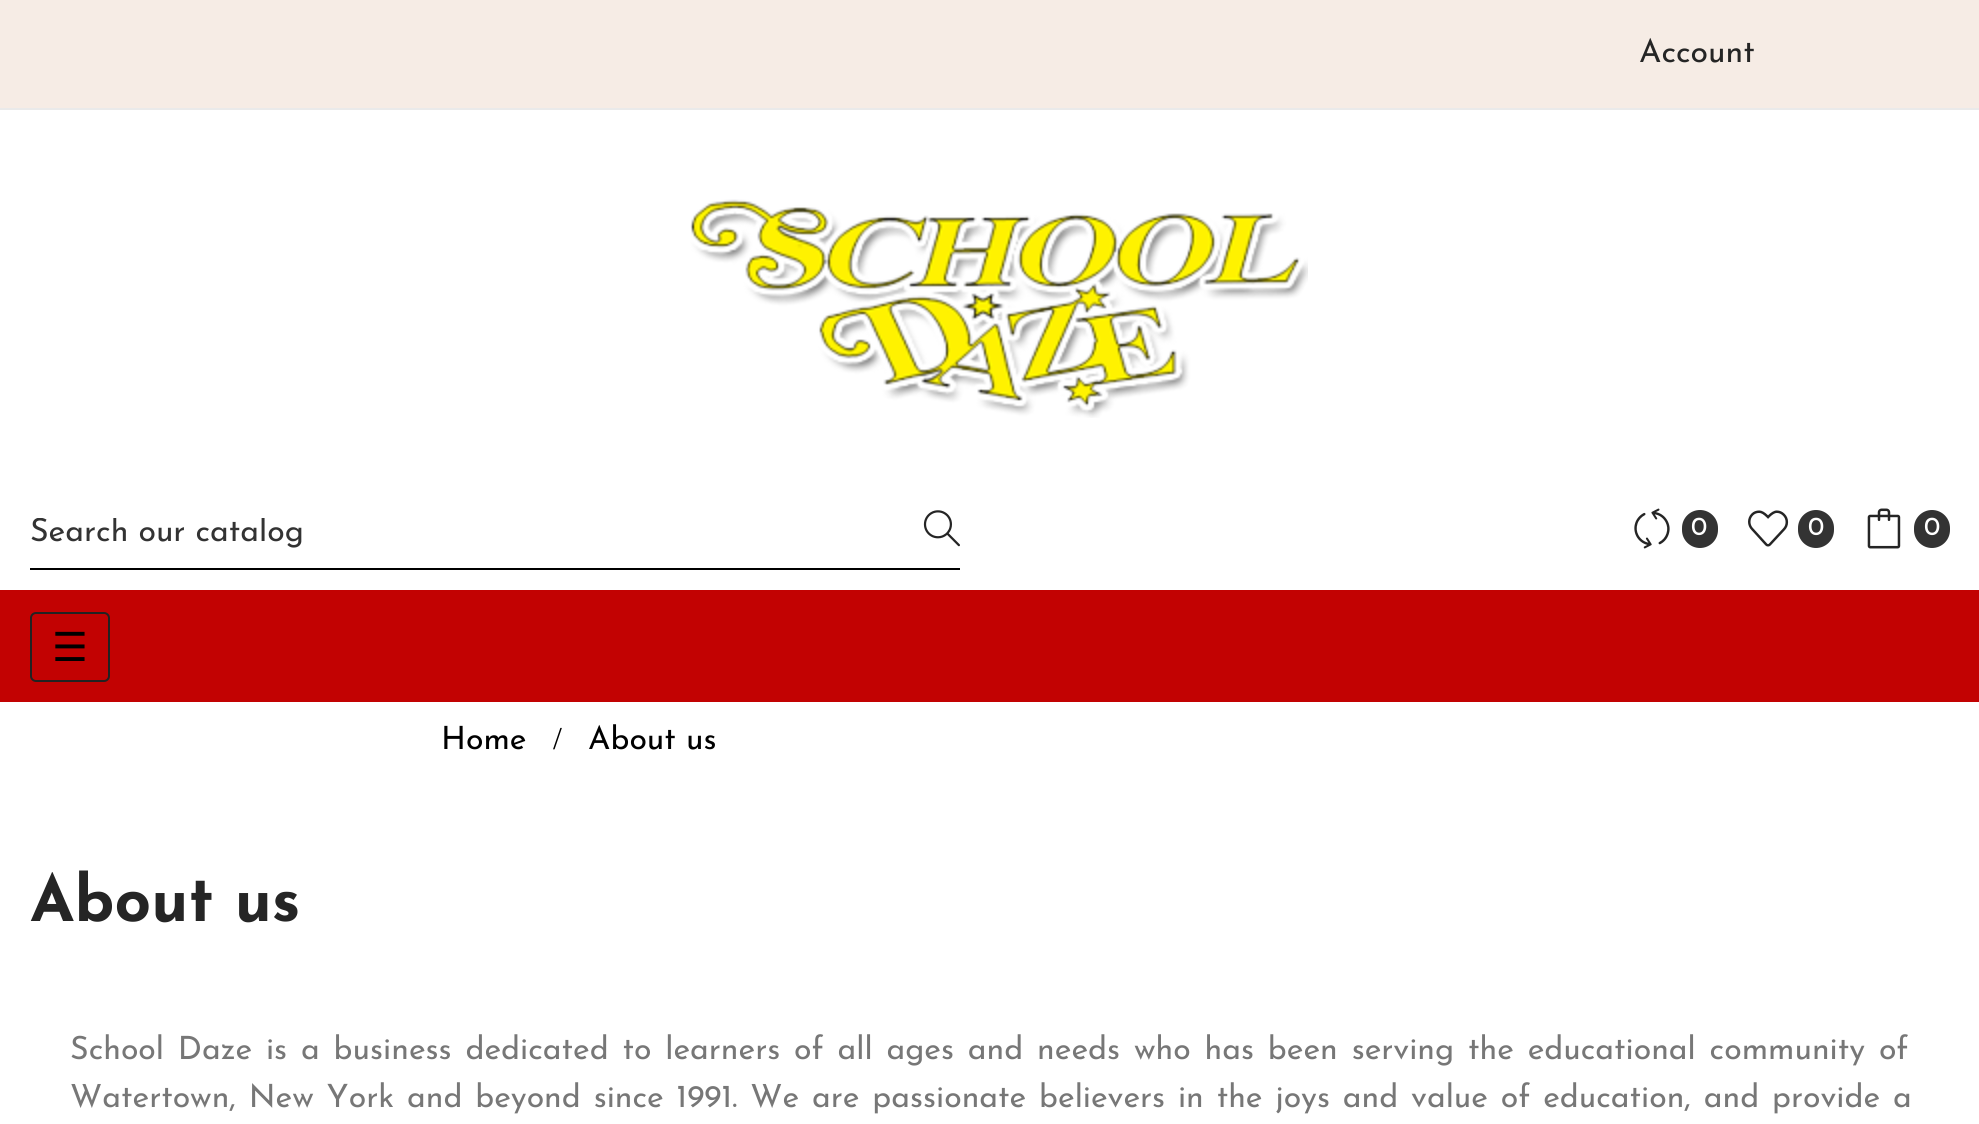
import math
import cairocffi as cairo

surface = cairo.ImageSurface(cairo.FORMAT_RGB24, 1979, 1124)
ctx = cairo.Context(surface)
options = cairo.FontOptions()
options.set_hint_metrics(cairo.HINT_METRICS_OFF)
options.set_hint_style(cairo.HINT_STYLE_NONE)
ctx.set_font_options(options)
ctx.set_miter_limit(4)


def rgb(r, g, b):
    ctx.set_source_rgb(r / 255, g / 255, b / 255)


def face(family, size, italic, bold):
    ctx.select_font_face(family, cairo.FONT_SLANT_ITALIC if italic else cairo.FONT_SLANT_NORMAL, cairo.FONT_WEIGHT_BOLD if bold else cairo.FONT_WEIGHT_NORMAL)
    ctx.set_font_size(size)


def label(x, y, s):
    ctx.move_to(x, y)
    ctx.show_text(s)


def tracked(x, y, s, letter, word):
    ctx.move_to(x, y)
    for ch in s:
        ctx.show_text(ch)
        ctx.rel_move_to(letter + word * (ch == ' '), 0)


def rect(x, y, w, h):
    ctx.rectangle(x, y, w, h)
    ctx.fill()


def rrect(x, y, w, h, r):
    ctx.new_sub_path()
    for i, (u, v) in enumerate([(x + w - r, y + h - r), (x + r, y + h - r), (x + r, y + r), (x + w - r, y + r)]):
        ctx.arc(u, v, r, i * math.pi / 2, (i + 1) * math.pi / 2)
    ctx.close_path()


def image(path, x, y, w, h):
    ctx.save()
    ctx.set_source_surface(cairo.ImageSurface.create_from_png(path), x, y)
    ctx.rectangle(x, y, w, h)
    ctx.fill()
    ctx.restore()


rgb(255, 255, 255)
ctx.paint()
rgb(246, 236, 229)
rect(0, 0, 1979, 108)
rgb(234, 234, 234)
rect(0, 108, 1979, 2)
face('Josefin Sans', 32, 0, 0)
rgb(37, 37, 37)
label(1639, 62, 'Account')
image('image0.png', 690, 199, 618, 219)
rgb(0, 0, 0)
rect(30, 568, 930, 2)
ctx.save()
ctx.rectangle(30, 518, 880, 32)
ctx.clip()
rgb(51, 51, 51)
label(30, 541, 'Search our catalog')
ctx.restore()
image('image1.png', 923, 510, 37, 37)
image('image2.png', 1634, 508, 36, 41)
rgb(51, 51, 51)
rrect(1682, 510, 36, 38, 18)
ctx.fill()
face('Josefin Sans', 26, 0, 0)
rgb(255, 255, 255)
label(1691, 535, '0')
image('image3.png', 1748, 510, 41, 37)
rgb(51, 51, 51)
rrect(1798, 510, 36, 38, 18)
ctx.fill()
rgb(255, 255, 255)
label(1808, 535, '0')
image('image4.png', 1867, 508, 34, 41)
rgb(51, 51, 51)
rrect(1914, 510, 36, 38, 18)
ctx.fill()
rgb(255, 255, 255)
label(1924, 535, '0')
rgb(194, 2, 2)
rect(0, 590, 1979, 112)
rrect(31, 613, 78, 68, 5)
rgb(34, 34, 34)
ctx.stroke()
face('DejaVu Sans', 40, 0, 0)
rgb(0, 0, 0)
label(52, 661, '☰')
face('Josefin Sans', 32, 0, 0)
label(441, 749, 'Home')
face('Liberation Serif', 32, 0, 0)
label(553, 749, '/')
face('Josefin Sans', 32, 0, 0)
label(588, 749, 'About us')
face('Josefin Sans', 64, 0, 1)
rgb(37, 37, 37)
label(30, 921, 'About us')
face('Josefin Sans', 32, 0, 0)
rgb(119, 119, 119)
tracked(70, 1059, 'School Daze is a business dedicated to learners of all ages and needs who has been serving the educational community of', 0, 3.75)
tracked(70, 1107, 'Watertown, New York and beyond since 1991. We are passionate believers in the joys and value of education, and provide a', 0, 2.75)
surface.write_to_png('render.png')
